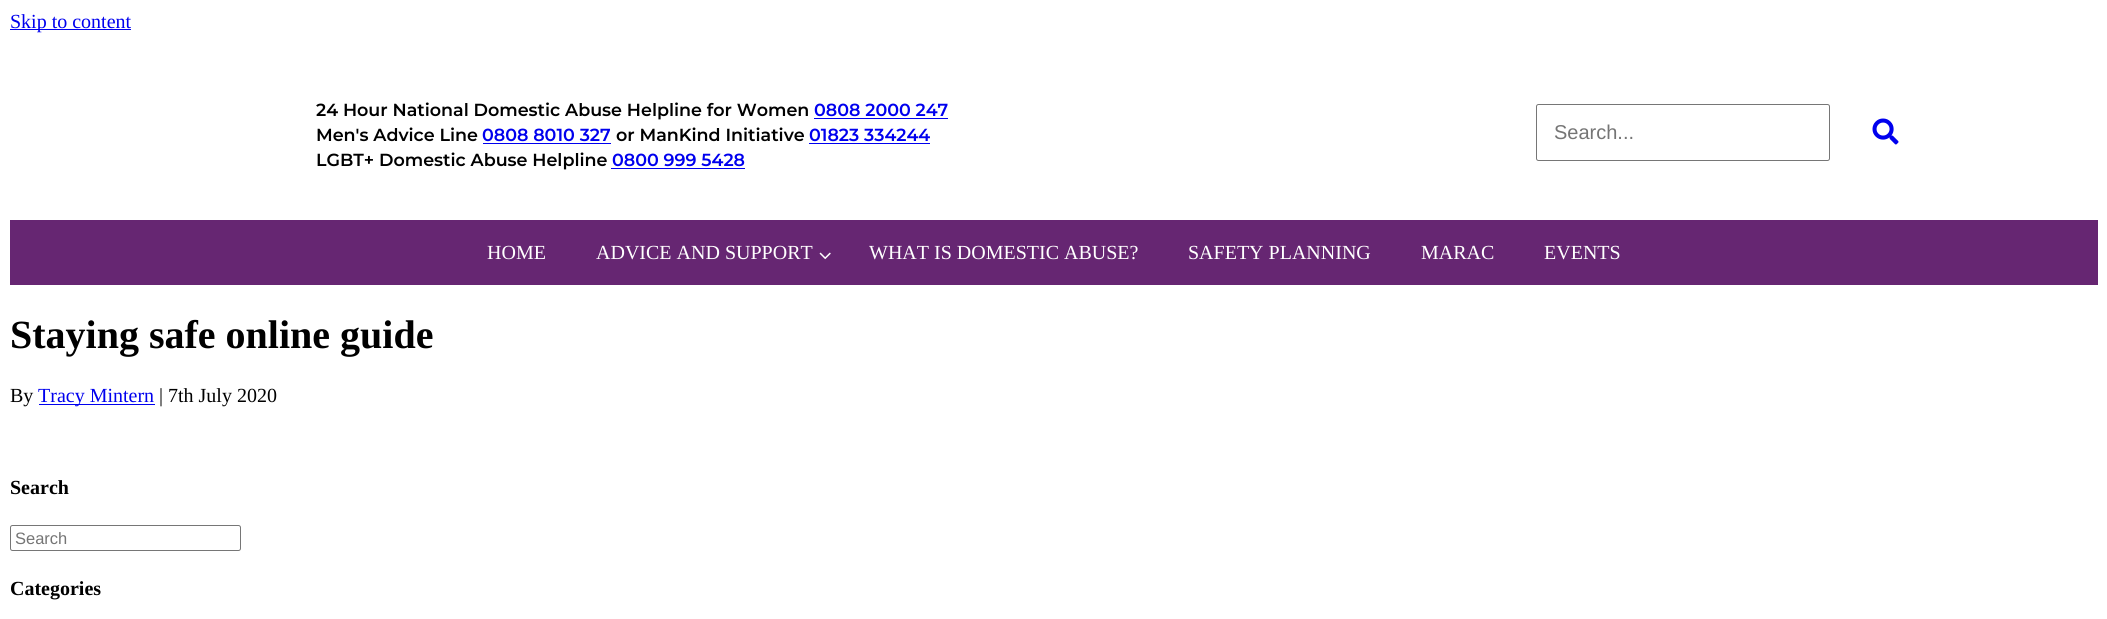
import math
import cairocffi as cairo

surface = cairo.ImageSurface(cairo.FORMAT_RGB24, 2107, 619)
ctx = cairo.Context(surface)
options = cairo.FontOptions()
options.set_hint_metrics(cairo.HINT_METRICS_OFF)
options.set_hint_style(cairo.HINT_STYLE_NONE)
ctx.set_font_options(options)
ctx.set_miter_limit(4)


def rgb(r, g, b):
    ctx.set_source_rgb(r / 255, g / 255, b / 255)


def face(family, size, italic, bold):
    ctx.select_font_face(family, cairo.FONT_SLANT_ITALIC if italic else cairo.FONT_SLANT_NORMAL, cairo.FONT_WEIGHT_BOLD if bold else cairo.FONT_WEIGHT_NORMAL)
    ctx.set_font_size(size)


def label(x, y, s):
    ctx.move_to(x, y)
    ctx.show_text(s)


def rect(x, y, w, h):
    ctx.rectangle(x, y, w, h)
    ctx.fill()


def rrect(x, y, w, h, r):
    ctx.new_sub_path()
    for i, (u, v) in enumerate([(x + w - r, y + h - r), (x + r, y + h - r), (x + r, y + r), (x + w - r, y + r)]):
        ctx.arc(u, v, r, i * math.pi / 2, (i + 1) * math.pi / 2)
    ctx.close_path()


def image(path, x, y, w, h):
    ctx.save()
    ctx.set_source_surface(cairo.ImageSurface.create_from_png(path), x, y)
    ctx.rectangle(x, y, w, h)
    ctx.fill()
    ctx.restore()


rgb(255, 255, 255)
ctx.paint()
rgb(0, 0, 238)
rect(10, 29, 121, 1)
face('Liberation Serif', 20, 0, 0)
label(10, 28, 'Skip to content')
face('Montserrat SemiBold', 17.5, 0, 0)
rgb(0, 0, 0)
label(316, 116, '24 Hour National Domestic Abuse Helpline for Women')
rgb(0, 0, 238)
label(814, 116, '0808 2000 247')
rect(814, 118, 134, 1)
rgb(0, 0, 0)
label(316, 141, 'Men\'s Advice Line')
rgb(0, 0, 238)
label(482, 141, '0808 8010 327')
rect(483, 143, 128, 1)
rgb(0, 0, 0)
label(616, 141, 'or ManKind Initiative')
rgb(0, 0, 238)
label(809, 141, '01823 334244')
rect(809, 143, 121, 1)
rgb(0, 0, 0)
label(316, 166, 'LGBT+ Domestic Abuse Helpline')
rgb(0, 0, 238)
label(612, 166, '0800 999 5428')
rect(611, 168, 134, 1)
rrect(1536.5, 104.5, 293, 56, 2)
rgb(118, 118, 118)
ctx.set_line_width(1)
ctx.stroke()
face('Liberation Sans', 20, 0, 0)
rgb(117, 117, 117)
label(1554, 139, 'Search...')
image('image0.png', 1872, 118, 27, 27)
rgb(102, 38, 114)
rect(10, 220, 2088, 65)
face('Liberation Serif', 20, 0, 0)
rgb(255, 255, 255)
label(487, 259, 'HOME')
label(596, 259, 'ADVICE AND SUPPORT')
image('image1.png', 819, 252, 12, 8)
label(869, 259, 'WHAT IS DOMESTIC ABUSE?')
label(1188, 259, 'SAFETY PLANNING')
label(1421, 259, 'MARAC')
label(1544, 259, 'EVENTS')
face('Liberation Serif', 40, 0, 1)
rgb(0, 0, 0)
label(10, 348, 'Staying safe online guide')
face('Liberation Serif', 20, 0, 0)
label(10, 402, 'By')
rgb(0, 0, 238)
rect(39, 404, 116, 1)
label(38, 402, 'Tracy Mintern')
rgb(0, 0, 0)
label(159, 402, '| 7th July 2020')
face('Liberation Serif', 20, 0, 1)
label(10, 494, 'Search')
rrect(10.5, 525.5, 230, 25, 2)
rgb(118, 118, 118)
ctx.stroke()
face('Liberation Sans', 16.5, 0, 0)
rgb(117, 117, 117)
label(15, 544, 'Search')
face('Liberation Serif', 20, 0, 1)
rgb(0, 0, 0)
label(10, 595, 'Categories')
surface.write_to_png('render.png')
